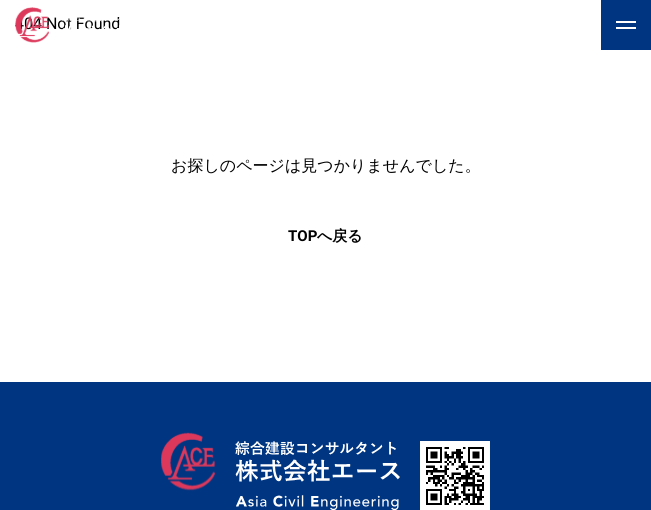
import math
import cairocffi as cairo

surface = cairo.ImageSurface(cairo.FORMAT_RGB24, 651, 510)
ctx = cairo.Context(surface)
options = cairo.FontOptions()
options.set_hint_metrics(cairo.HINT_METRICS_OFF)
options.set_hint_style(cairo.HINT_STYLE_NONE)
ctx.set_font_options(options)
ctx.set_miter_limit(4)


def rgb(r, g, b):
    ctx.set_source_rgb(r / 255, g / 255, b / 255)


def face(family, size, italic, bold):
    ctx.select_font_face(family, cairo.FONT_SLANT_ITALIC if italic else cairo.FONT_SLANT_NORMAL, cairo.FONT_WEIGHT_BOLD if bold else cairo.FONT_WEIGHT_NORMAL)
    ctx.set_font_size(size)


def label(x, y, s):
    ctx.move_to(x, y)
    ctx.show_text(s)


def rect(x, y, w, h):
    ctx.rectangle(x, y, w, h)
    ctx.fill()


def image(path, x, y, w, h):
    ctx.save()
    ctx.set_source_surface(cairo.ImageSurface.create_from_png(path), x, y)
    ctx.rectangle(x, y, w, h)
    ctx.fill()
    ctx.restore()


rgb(255, 255, 255)
ctx.paint()
face('Roboto', 16, 0, 0)
rgb(0, 0, 0)
label(15, 29, '404 Not Found')
image('image0.png', 15, 7, 105, 36)
rgb(0, 53, 129)
rect(601, 0, 50, 50)
rgb(255, 255, 255)
rect(616, 21, 20, 2)
rect(616, 27, 20, 2)
face('WenQuanYi Zen Hei Medium', 16, 0, 0)
rgb(0, 0, 0)
label(171, 171, 'お探しのページは見つかりませんでした。')
face('Roboto', 15, 0, 1)
label(288, 241, 'TOP')
face('WenQuanYi Zen Hei', 15, 0, 1)
label(317, 241, 'へ戻る')
rgb(0, 53, 129)
rect(0, 382, 651, 128)
image('image1.png', 161, 432, 239, 78)
image('image2.png', 420, 441, 70, 69)
surface.write_to_png('render.png')
